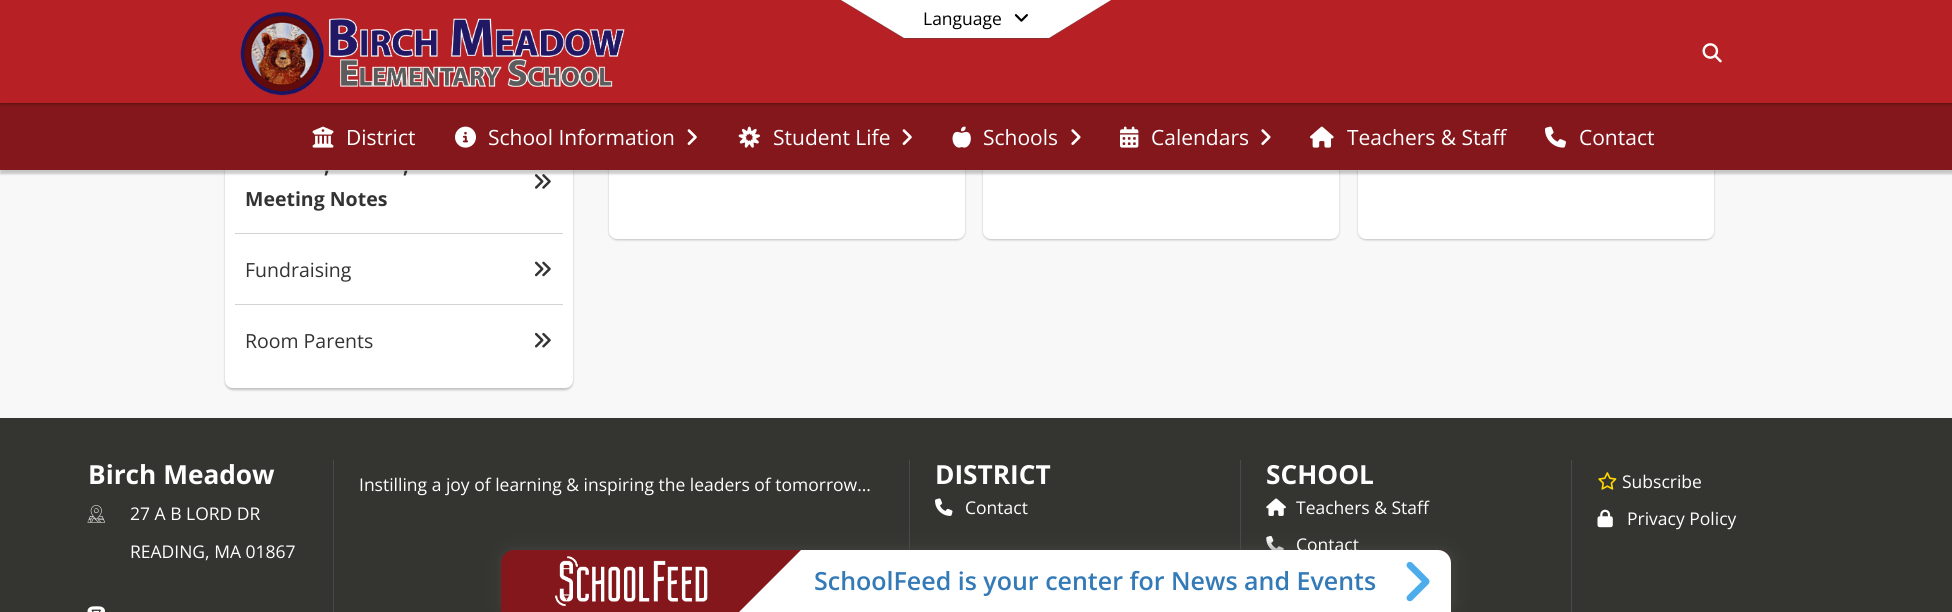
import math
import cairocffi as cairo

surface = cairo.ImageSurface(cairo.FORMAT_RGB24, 1952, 612)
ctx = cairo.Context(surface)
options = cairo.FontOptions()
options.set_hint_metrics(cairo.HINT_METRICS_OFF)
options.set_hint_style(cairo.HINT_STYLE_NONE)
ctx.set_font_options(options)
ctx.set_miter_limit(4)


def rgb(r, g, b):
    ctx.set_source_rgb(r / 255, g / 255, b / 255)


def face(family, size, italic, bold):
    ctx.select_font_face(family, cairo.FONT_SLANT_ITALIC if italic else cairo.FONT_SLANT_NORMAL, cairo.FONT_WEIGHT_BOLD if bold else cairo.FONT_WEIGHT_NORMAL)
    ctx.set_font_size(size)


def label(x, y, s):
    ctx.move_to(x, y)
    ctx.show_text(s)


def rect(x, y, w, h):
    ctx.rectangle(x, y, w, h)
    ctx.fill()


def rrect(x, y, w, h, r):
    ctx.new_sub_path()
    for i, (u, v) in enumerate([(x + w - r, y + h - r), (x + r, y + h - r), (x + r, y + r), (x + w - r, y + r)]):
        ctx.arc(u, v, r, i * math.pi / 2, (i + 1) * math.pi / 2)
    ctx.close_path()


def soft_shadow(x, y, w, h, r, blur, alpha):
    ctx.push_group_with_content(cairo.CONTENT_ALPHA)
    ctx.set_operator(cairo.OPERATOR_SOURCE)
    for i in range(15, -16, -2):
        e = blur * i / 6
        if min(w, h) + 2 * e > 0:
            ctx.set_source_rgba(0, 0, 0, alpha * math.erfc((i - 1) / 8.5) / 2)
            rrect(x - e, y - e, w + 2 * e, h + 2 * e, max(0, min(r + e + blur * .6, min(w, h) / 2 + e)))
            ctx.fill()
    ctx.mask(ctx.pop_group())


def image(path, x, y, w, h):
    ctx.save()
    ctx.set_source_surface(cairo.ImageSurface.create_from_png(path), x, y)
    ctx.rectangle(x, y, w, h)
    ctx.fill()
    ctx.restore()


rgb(248, 248, 248)
ctx.paint()
rgb(0, 0, 0)
soft_shadow(225, -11, 348, 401, 8, 1, 0.22)
rgb(255, 255, 255)
ctx.new_path()
ctx.move_to(225, -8)
ctx.line_to(573, -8)
ctx.line_to(573, 380)
ctx.curve_to(573, 384.5, 569.5, 388, 565, 388)
ctx.line_to(233, 388)
ctx.curve_to(228.5, 388, 225, 384.5, 225, 380)
ctx.close_path()
ctx.fill()
image('image12.png', 534, 174, 17, 15)
rgb(0, 0, 0)
soft_shadow(609, -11, 356, 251, 8, 1, 0.22)
rgb(255, 255, 255)
rrect(609, -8, 356, 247, 8)
ctx.fill()
rgb(0, 0, 0)
soft_shadow(983, -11, 356, 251, 8, 1, 0.22)
rgb(255, 255, 255)
rrect(983, -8, 356, 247, 8)
ctx.fill()
rgb(0, 0, 0)
soft_shadow(1358, -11, 356, 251, 8, 1, 0.22)
rgb(255, 255, 255)
rrect(1358, -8, 356, 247, 8)
ctx.fill()
rgb(0, 0, 0)
soft_shadow(0, 106, 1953, 68, 0, 1, 0.2)
rgb(124, 22, 25)
rect(0, 103, 1952, 3)
ctx.set_source_rgba(0, 0, 0, 0.1)
ctx.new_path()
ctx.move_to(0, 102)
ctx.line_to(0, 104)
ctx.line_to(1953, 104)
ctx.line_to(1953, 1)
ctx.line_to(1952, 1)
ctx.line_to(1952, 102)
ctx.close_path()
ctx.fill()
rgb(131, 23, 27)
rect(0, 106, 1952, 64)
rgb(0, 0, 0)
soft_shadow(0, 3, 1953, 102, 0, 1, 0.1)
rgb(183, 32, 37)
rect(0, 0, 1952, 103)
rgb(140, 50, 53)
ctx.new_path()
ctx.move_to(840, 0)
ctx.line_to(904, 39)
ctx.line_to(1049, 39)
ctx.line_to(1112, 0)
ctx.close_path()
ctx.fill()
rgb(255, 255, 255)
ctx.new_path()
ctx.move_to(841, 0)
ctx.line_to(904, 38)
ctx.line_to(1049, 38)
ctx.line_to(1111, 0)
ctx.close_path()
ctx.fill()
face('Open Sans', 17.5, 0, 0)
rgb(0, 0, 0)
label(923, 25, 'Language')
image('image0.png', 1014, 14, 14, 8)
image('image1.png', 240, 11, 385, 85)
image('image2.png', 1702, 43, 20, 20)
image('image3.png', 312, 126, 22, 22)
face('Open Sans', 21, 0, 0)
rgb(255, 255, 255)
label(346, 145, 'District')
image('image4.png', 455, 126, 21, 22)
label(488, 145, 'School Information')
image('image5.png', 687, 129, 10, 16)
image('image6.png', 738, 126, 22, 22)
label(773, 145, 'Student Life')
image('image5.png', 902, 129, 10, 16)
image('image7.png', 952, 126, 19, 22)
label(983, 145, 'Schools')
image('image8.png', 1071, 129, 10, 16)
image('image9.png', 1120, 126, 19, 22)
label(1151, 145, 'Calendars')
image('image8.png', 1261, 129, 10, 16)
image('image10.png', 1310, 126, 24, 22)
label(1347, 145, 'Teachers & Staff')
image('image11.png', 1545, 126, 21, 22)
label(1579, 145, 'Contact')
rgb(211, 211, 211)
rect(235, 233, 328, 1)
face('Open Sans', 19.5, 0, 1)
rgb(51, 51, 51)
label(324, 173, ',')
label(403, 173, ',')
label(245, 206, 'Meeting Notes')
rgb(211, 211, 211)
rect(235, 304, 328, 1)
face('Open Sans', 19.5, 0, 0)
rgb(51, 51, 51)
label(245, 277, 'Fundraising')
image('image13.png', 535, 261, 16, 16)
label(245, 348, 'Room Parents')
image('image14.png', 534, 332, 17, 16)
rgb(52, 52, 48)
rect(0, 418, 1952, 194)
rgb(73, 74, 77)
rect(909, 460, 1, 90)
rect(1240, 460, 1, 90)
image('image21.png', 1266, 535, 18, 15)
rgb(72, 72, 72)
soft_shadow(498, 546, 960, 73, 18, 6, 0.5)
face('Open Sans', 17.5, 0, 0)
rgb(255, 255, 255)
label(1296, 551, 'Contact')
rgb(131, 23, 27)
ctx.new_path()
ctx.move_to(514, 550)
ctx.line_to(1438, 550)
ctx.curve_to(1445, 550, 1451, 556, 1451, 563)
ctx.line_to(1451, 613)
ctx.line_to(501, 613)
ctx.line_to(501, 563)
ctx.curve_to(501, 556, 507, 550, 514, 550)
ctx.close_path()
ctx.fill()
image('image15.png', 554, 556, 154, 51)
rgb(255, 255, 255)
ctx.new_path()
ctx.move_to(801, 550)
ctx.line_to(739, 612)
ctx.line_to(1451, 612)
ctx.line_to(1451, 563)
ctx.curve_to(1451, 556, 1445, 550, 1438, 550)
ctx.close_path()
ctx.fill()
face('Open Sans SemiBold', 25, 0, 0)
rgb(51, 122, 183)
label(814, 590, 'SchoolFeed is your center for News and Events')
image('image16.png', 1406, 561, 24, 41)
face('Open Sans', 26.25, 0, 1)
rgb(255, 255, 255)
label(88, 484, 'Birch Meadow')
image('image17.png', 87, 505, 18, 18)
face('Open Sans', 17.5, 0, 0)
label(130, 520, '27 A B LORD DR')
label(130, 558, 'READING, MA 01867')
image('image18.png', 87, 606, 18, 6)
rgb(73, 74, 77)
rect(333, 460, 1, 152)
rgb(255, 255, 255)
label(359, 491, 'Instilling a joy of learning & inspiring the leaders of tomorrow...')
face('Open Sans', 26.25, 0, 1)
label(935, 484, 'DISTRICT')
image('image19.png', 935, 498, 18, 18)
face('Open Sans', 17.5, 0, 0)
label(965, 514, 'Contact')
face('Open Sans', 26.25, 0, 1)
label(1266, 484, 'SCHOOL')
image('image20.png', 1266, 498, 20, 18)
face('Open Sans', 17.5, 0, 0)
label(1296, 514, 'Teachers & Staff')
rgb(73, 74, 77)
rect(1571, 460, 1, 152)
image('image22.png', 1598, 472, 19, 18)
rgb(255, 255, 255)
label(1622, 488, 'Subscribe')
image('image23.png', 1597, 509, 16, 19)
label(1627, 525, 'Privacy Policy')
surface.write_to_png('render.png')
